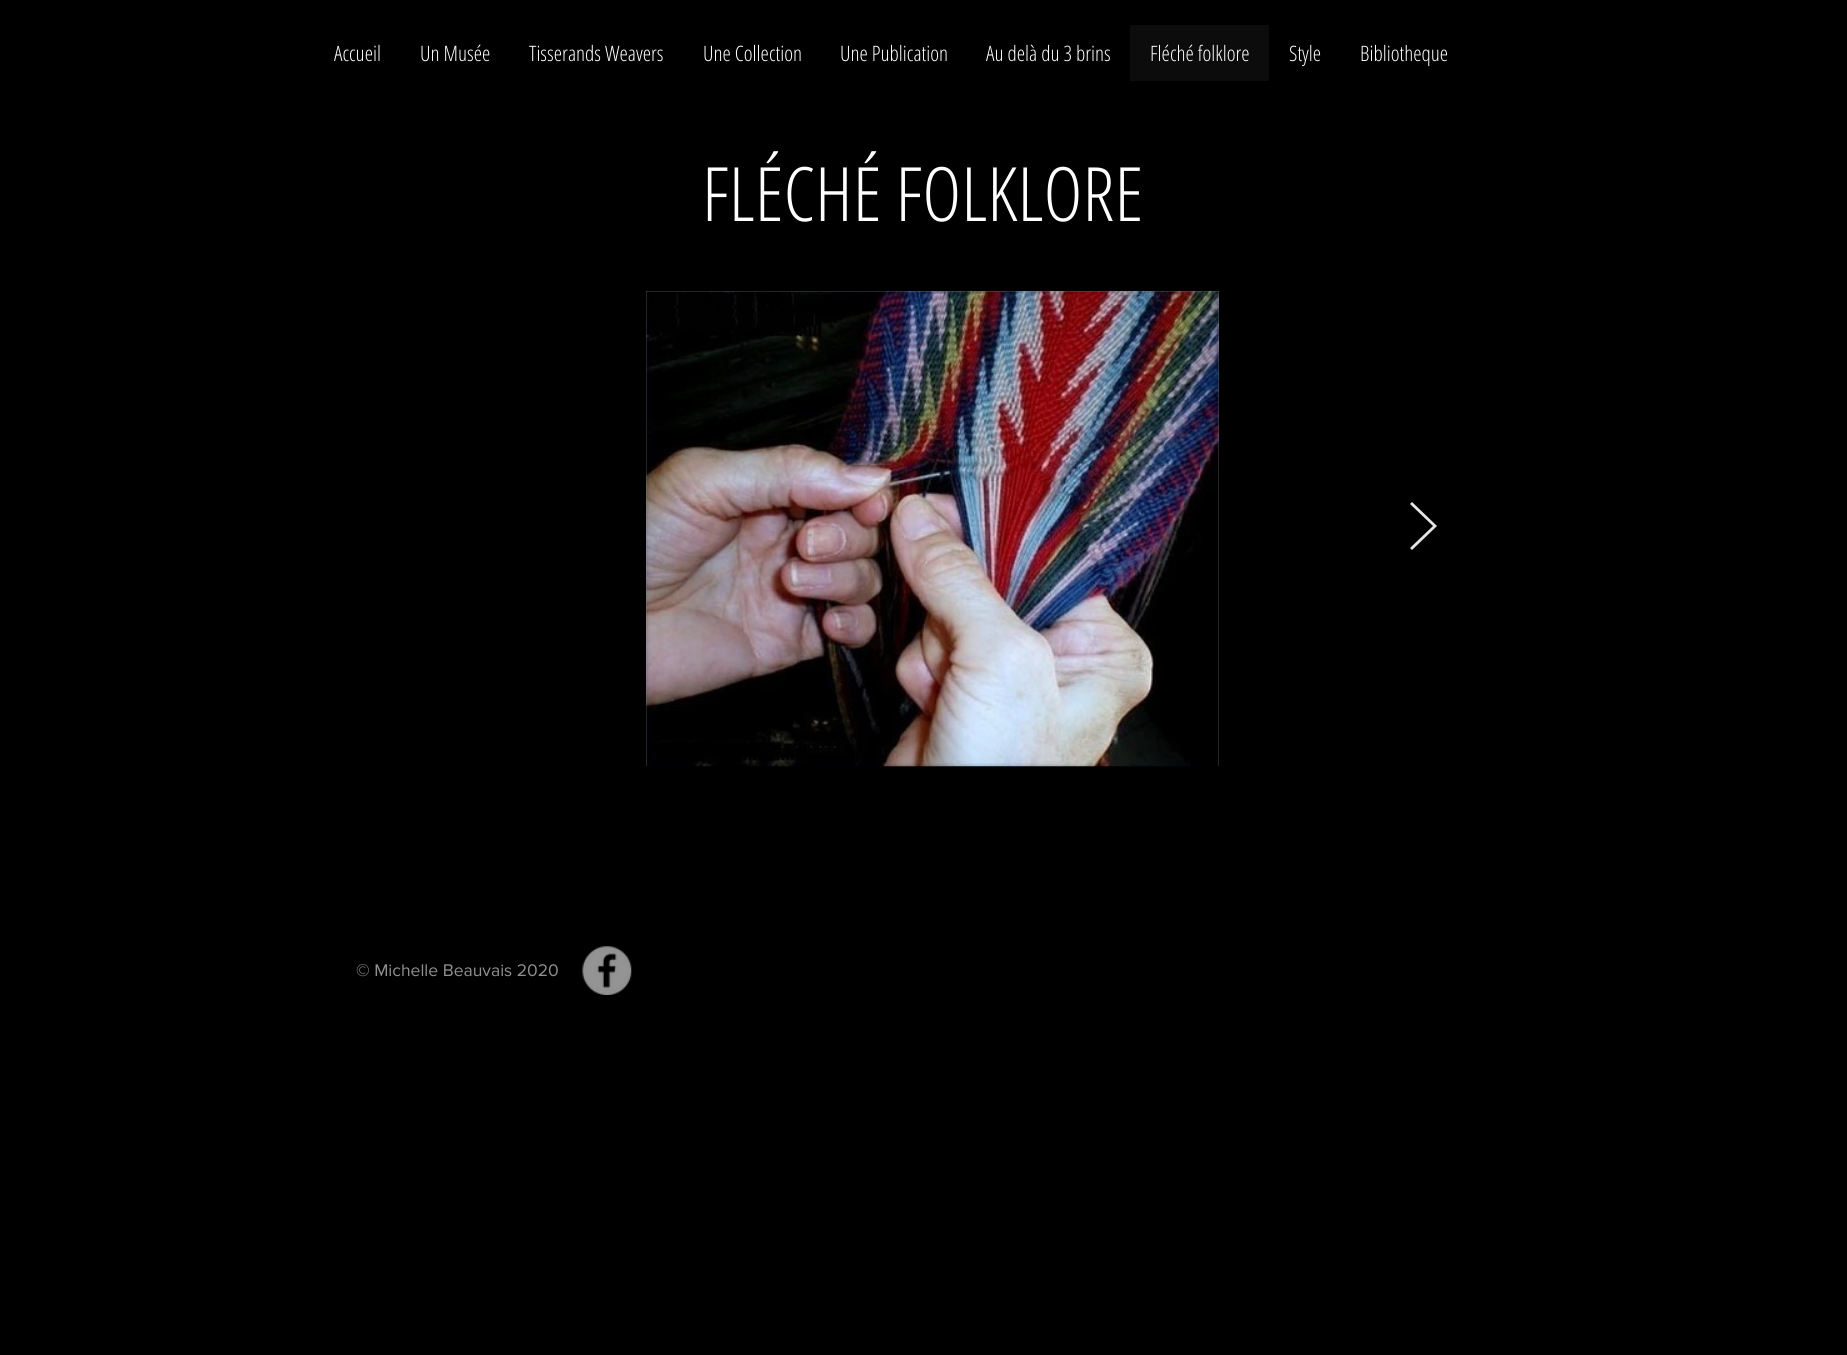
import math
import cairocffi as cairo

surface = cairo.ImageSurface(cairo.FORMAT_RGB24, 1847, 1355)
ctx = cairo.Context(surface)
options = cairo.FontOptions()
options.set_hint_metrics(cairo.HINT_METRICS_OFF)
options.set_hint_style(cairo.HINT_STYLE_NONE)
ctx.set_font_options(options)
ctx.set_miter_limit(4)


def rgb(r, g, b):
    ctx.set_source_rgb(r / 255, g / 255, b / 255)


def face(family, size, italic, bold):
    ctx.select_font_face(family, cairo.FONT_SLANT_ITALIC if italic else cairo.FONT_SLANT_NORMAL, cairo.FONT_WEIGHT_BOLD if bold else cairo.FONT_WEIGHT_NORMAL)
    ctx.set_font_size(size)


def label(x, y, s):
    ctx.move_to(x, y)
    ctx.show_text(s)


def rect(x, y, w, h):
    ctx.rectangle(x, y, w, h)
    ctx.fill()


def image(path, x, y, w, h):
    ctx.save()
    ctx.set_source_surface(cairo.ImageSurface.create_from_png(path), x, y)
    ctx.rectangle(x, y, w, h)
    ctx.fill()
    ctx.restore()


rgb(0, 0, 0)
ctx.paint()
face('Open Sans Condensed Light', 21.25, 0, 0)
rgb(255, 255, 255)
label(334, 61, 'Accueil')
label(420, 61, 'Un Musée')
label(529, 61, 'Tisserands Weavers')
label(703, 61, 'Une Collection')
label(840, 61, 'Une Publication')
label(986, 61, 'Au delà du 3 brins')
rgb(12, 12, 12)
rect(1130, 25, 139, 56)
rgb(255, 255, 255)
label(1150, 61, 'Fléché folklore')
label(1289, 61, 'Style')
label(1360, 61, 'Bibliotheque')
face('Open Sans Condensed Light', 75, 0, 0)
label(702, 221, 'FLÉCHÉ FOLKLORE')
rgb(144, 144, 144)
rect(646, 291, 573, 475)
image('image0.png', 646, 291, 573, 476)
rgb(230, 230, 230)
ctx.new_path()
ctx.move_to(1410, 504)
ctx.line_to(1412, 502)
ctx.line_to(1437, 526)
ctx.line_to(1412, 550)
ctx.line_to(1410, 548)
ctx.line_to(1433, 526)
ctx.close_path()
ctx.fill()
face('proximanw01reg', 17.5, 0, 0)
rgb(144, 144, 144)
label(356, 976, '© Michelle Beauvais 2020')
image('image1.png', 582, 946, 50, 49)
surface.write_to_png('render.png')
